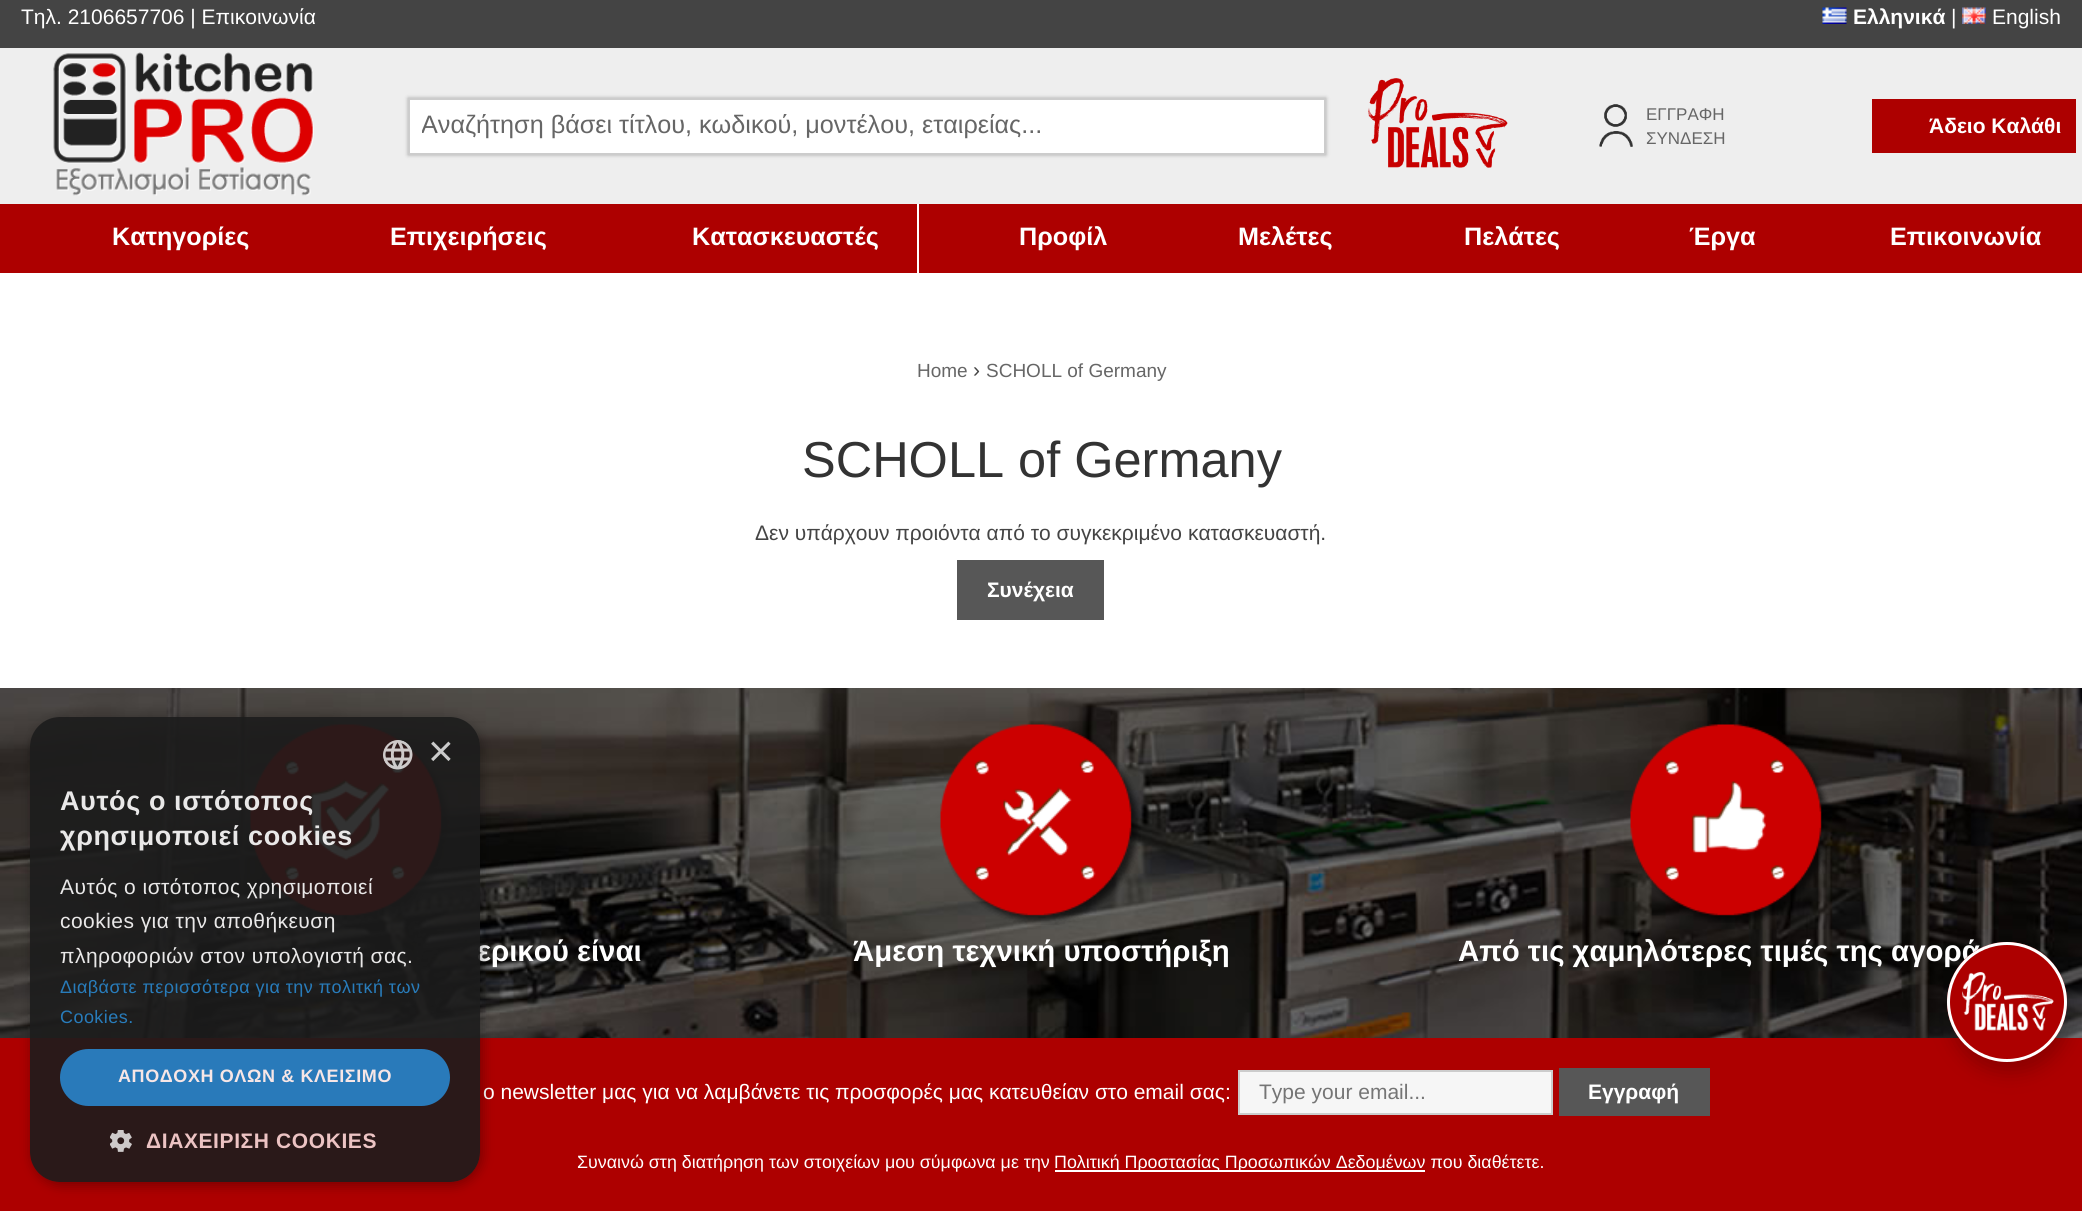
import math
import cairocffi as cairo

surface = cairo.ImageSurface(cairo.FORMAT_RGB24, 2082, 1211)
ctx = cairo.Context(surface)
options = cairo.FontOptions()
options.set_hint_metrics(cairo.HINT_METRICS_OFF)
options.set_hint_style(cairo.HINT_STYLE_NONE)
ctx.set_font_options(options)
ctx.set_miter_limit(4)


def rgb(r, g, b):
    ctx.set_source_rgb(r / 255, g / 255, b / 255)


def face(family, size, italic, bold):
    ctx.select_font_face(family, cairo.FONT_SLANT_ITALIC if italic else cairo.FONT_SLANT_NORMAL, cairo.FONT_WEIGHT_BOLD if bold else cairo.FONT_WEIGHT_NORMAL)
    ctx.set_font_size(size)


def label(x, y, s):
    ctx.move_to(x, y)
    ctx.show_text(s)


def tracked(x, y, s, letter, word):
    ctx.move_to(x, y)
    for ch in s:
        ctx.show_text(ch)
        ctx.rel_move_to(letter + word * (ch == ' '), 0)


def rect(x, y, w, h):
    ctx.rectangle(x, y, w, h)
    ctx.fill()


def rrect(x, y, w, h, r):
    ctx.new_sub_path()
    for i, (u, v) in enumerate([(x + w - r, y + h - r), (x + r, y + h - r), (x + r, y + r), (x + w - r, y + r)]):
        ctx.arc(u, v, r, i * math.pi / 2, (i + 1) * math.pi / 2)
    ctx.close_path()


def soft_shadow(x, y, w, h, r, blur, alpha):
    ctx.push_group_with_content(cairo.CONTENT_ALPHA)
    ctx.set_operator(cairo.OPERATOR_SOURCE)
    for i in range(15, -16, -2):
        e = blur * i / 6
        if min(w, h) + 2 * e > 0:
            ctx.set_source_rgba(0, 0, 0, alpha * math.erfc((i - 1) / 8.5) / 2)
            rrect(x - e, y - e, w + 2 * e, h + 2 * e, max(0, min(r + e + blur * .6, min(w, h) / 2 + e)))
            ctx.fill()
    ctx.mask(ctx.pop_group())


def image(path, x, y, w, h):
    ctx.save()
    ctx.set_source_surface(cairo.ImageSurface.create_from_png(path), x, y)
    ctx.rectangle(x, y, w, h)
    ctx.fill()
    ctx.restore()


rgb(255, 255, 255)
ctx.paint()
rgb(68, 68, 68)
rect(0, 0, 2082, 48)
face('Liberation Sans', 21, 0, 0)
rgb(255, 255, 255)
label(21, 24, 'Τηλ. 2106657706 | Επικοινωνία')
image('image0.png', 1822, 7, 25, 17)
face('Liberation Sans', 21, 0, 1)
label(1853, 24, 'Ελληνικά')
face('Liberation Sans', 21, 0, 0)
label(1951, 24, '|')
image('image1.png', 1962, 7, 24, 17)
label(1992, 24, 'English')
rgb(238, 238, 238)
rect(0, 48, 2082, 156)
image('image2.png', 53, 52, 261, 144)
rgb(170, 170, 170)
soft_shadow(408, 98, 918, 57, 0, 2, 1)
rgb(255, 255, 255)
ctx.rectangle(409, 99, 916, 55)
ctx.fill_preserve()
rgb(204, 204, 204)
ctx.stroke()
ctx.save()
ctx.rectangle(422, 111, 891, 30)
ctx.clip()
face('Liberation Sans', 25.2, 0, 0)
rgb(102, 102, 102)
label(421, 133, 'Αναζήτηση βάσει τίτλου, κωδικού, μοντέλου, εταιρείας...')
ctx.restore()
image('image3.png', 1368, 78, 140, 90)
image('image4.png', 1599, 104, 34, 43)
face('Liberation Sans', 17, 0, 0)
rgb(102, 102, 102)
label(1646, 120, 'ΕΓΓΡΑΦΗ')
label(1646, 144, 'ΣΥΝΔΕΣΗ')
rgb(173, 0, 0)
rect(1872, 99, 204, 54)
face('Liberation Sans', 21, 0, 1)
rgb(255, 255, 255)
label(1929, 133, 'Άδειο Καλάθι')
rgb(173, 0, 0)
rect(0, 204, 2082, 69)
face('Liberation Sans', 25.2, 0, 1)
rgb(255, 255, 255)
label(112, 245, 'Κατηγορίες')
label(390, 245, 'Επιχειρήσεις')
label(692, 245, 'Κατασκευαστές')
rect(917, 204, 2, 69)
label(1019, 245, 'Προφίλ')
label(1238, 245, 'Μελέτες')
label(1464, 245, 'Πελάτες')
label(1689, 245, 'Έργα')
label(1890, 245, 'Επικοινωνία')
face('Liberation Sans', 19, 0, 0)
rgb(102, 102, 102)
label(917, 377, 'Home')
face('Liberation Sans', 21, 0, 0)
rgb(68, 68, 68)
label(973, 377, '›')
face('Liberation Sans', 19, 0, 0)
rgb(102, 102, 102)
label(986, 377, 'SCHOLL of Germany')
face('Liberation Sans', 50.5, 0, 0)
rgb(51, 51, 51)
label(802, 477, 'SCHOLL of Germany')
face('Liberation Sans', 21, 0, 0)
rgb(68, 68, 68)
label(755, 540, 'Δεν υπάρχουν προιόντα από το συγκεκριμένο κατασκευαστή.')
rgb(87, 87, 87)
rect(957, 560, 147, 60)
face('Liberation Sans', 21, 0, 1)
rgb(255, 255, 255)
label(987, 597, 'Συνέχεια')
image('image5.png', 0, 688, 2082, 350)
image('image6.png', 250, 724, 200, 201)
face('Liberation Sans', 29.4, 0, 1)
label(477, 961, 'ερικού είναι')
image('image7.png', 940, 724, 201, 201)
label(853, 961, 'Άμεση τεχνική υποστήριξη')
image('image8.png', 1630, 724, 200, 199)
label(1458, 961, 'Από τις χαμηλότερες τιμές της αγορά')
rgb(173, 0, 0)
rect(0, 1038, 2082, 173)
rgb(0, 0, 0)
soft_shadow(1950, 953, 120, 120, 60, 10, 0.2)
rgb(173, 0, 0)
ctx.arc(2007, 1002, 60, 0, 2 * math.pi)
ctx.fill()
image('image9.png', 1962, 972, 92, 59)
ctx.arc(2007, 1002, 58.5, 0, 2 * math.pi)
rgb(255, 255, 255)
ctx.set_line_width(3)
ctx.stroke()
face('Liberation Sans', 21, 0, 0)
label(483, 1099, 'ο newsletter μας για να λαμβάνετε τις προσφορές μας κατευθείαν στο email σας:')
rgb(246, 246, 246)
ctx.rectangle(1239, 1071, 313, 43)
ctx.fill_preserve()
rgb(204, 204, 204)
ctx.set_line_width(2)
ctx.stroke()
rgb(117, 117, 117)
label(1259, 1099, 'Type your email...')
rgb(87, 87, 87)
rect(1559, 1068, 151, 48)
face('Liberation Sans', 21, 0, 1)
rgb(255, 255, 255)
label(1588, 1099, 'Εγγραφή')
face('Liberation Sans', 17.85, 0, 0)
label(577, 1168, 'Συναινώ στη διατήρηση των στοιχείων μου σύμφωνα με την')
rect(1055, 1170, 370, 2)
label(1054, 1168, 'Πολιτική Προστασίας Προσωπικών Δεδομένων που διαθέτετε.')
ctx.save()
ctx.set_fill_rule(cairo.FILL_RULE_EVEN_ODD)
ctx.new_path()
ctx.move_to(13, 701)
ctx.line_to(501, 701)
ctx.line_to(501, 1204)
ctx.line_to(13, 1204)
ctx.close_path()
ctx.move_to(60, 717)
ctx.line_to(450, 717)
ctx.curve_to(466.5, 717, 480, 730.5, 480, 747)
ctx.line_to(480, 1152)
ctx.curve_to(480, 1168.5, 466.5, 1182, 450, 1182)
ctx.line_to(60, 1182)
ctx.curve_to(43.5, 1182, 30, 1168.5, 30, 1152)
ctx.line_to(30, 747)
ctx.curve_to(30, 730.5, 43.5, 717, 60, 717)
ctx.close_path()
ctx.clip()
rgb(0, 0, 0)
soft_shadow(32, 720, 450, 465, 30, 6, 0.32)
ctx.restore()
ctx.set_source_rgba(0.11, 0.11, 0.11, 0.9)
rrect(30, 717, 450, 465, 30)
ctx.fill()
image('image10.png', 383, 740, 30, 30)
face('Liberation Sans', 44, 0, 0)
rgb(202, 202, 202)
label(428, 766, '×')
face('Liberation Sans', 27, 0, 1)
rgb(233, 232, 232)
tracked(60, 810, 'Αυτός ο ιστότοπος', 0.6, 0)
tracked(60, 845, 'χρησιμοποιεί cookies', 0.6, 0)
face('Liberation Sans', 21, 0, 0)
tracked(60, 894, 'Αυτός ο ιστότοπος χρησιμοποιεί', 0.45, 0)
tracked(60, 928, 'cookies για την αποθήκευση', 0.45, 0)
tracked(60, 963, 'πληροφοριών στον υπολογιστή σας.', 0.45, 0)
face('Liberation Sans', 18, 0, 0)
rgb(40, 124, 187)
tracked(60, 993, 'Διαβάστε περισσότερα για την πολιτκή των', 0.45, 0)
tracked(60, 1023, 'Cookies.', 0.45, 0)
ctx.set_source_rgba(0.161, 0.525, 0.8, 0.9)
rrect(60, 1049, 390, 57, 28.5)
ctx.fill()
face('Liberation Sans', 18, 0, 1)
rgb(247, 230, 230)
tracked(118, 1082, 'ΑΠΟΔΟΧΗ ΟΛΩΝ & ΚΛΕΙΣΙΜΟ', 0.6, 0)
image('image11.png', 110, 1130, 22, 22)
face('Liberation Sans', 21, 0, 1)
rgb(236, 195, 195)
tracked(146, 1148, 'ΔΙΑΧΕΙΡΙΣΗ COOKIES', 0.6, 0)
surface.write_to_png('render.png')
